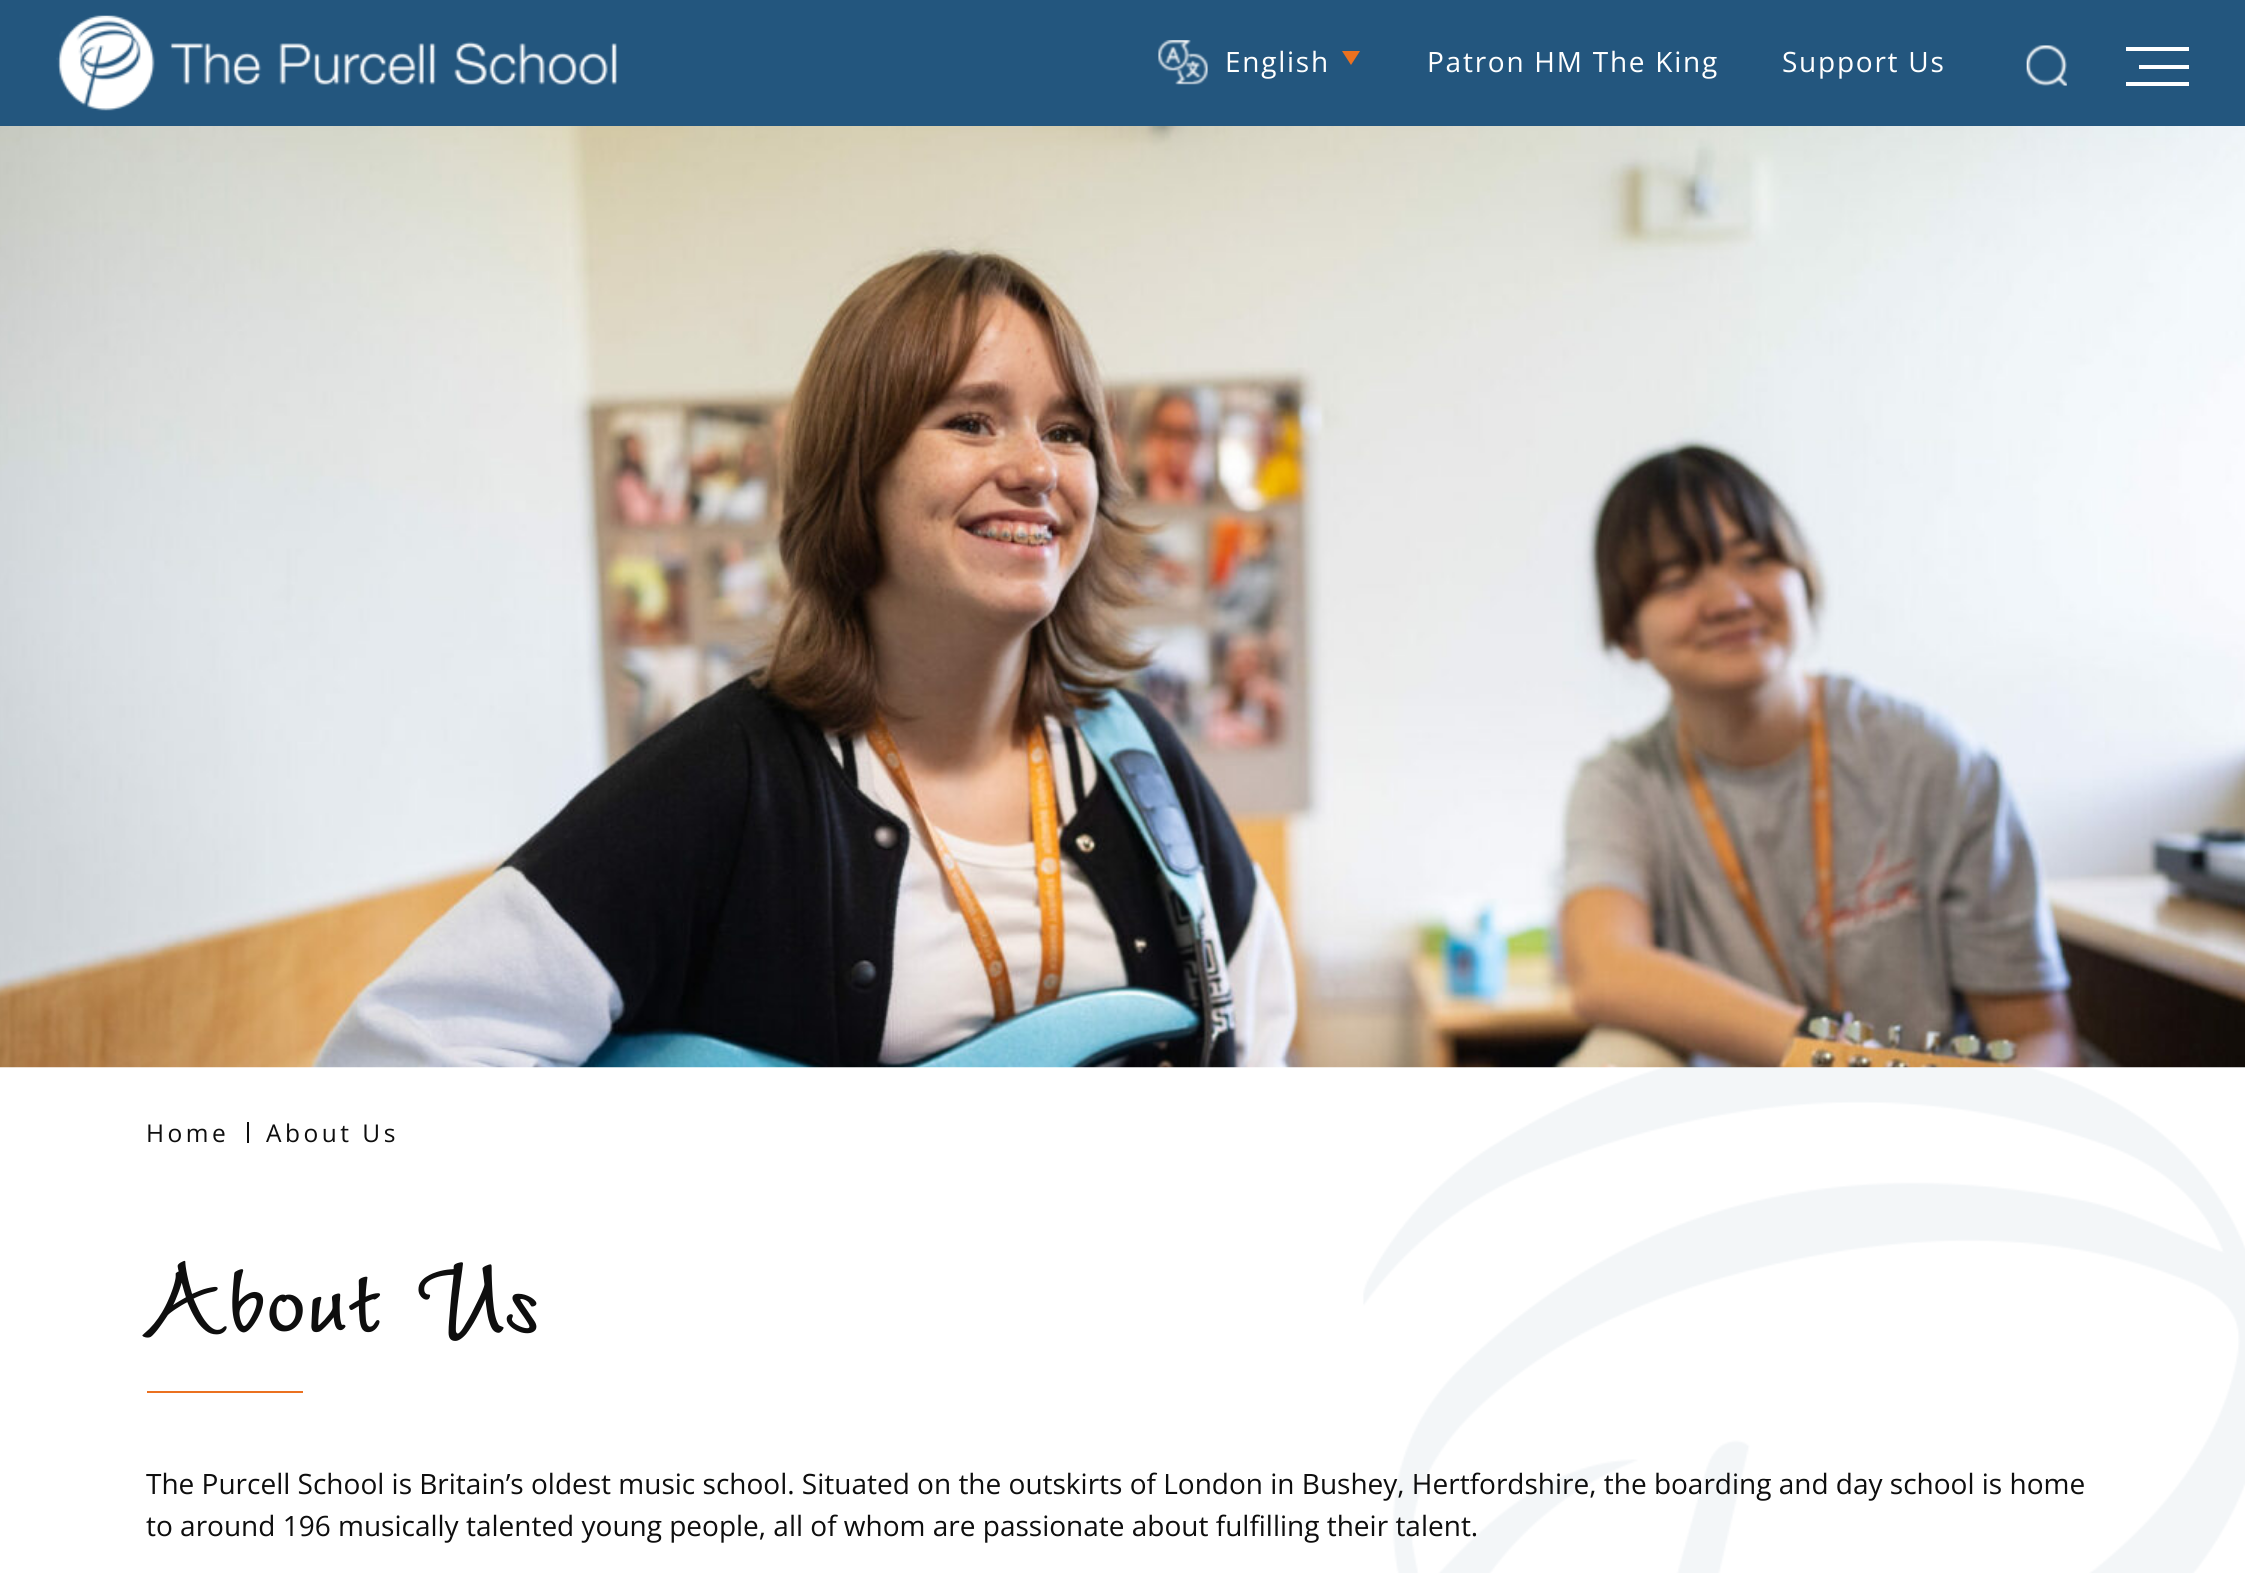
import math
import cairocffi as cairo

surface = cairo.ImageSurface(cairo.FORMAT_RGB24, 2245, 1573)
ctx = cairo.Context(surface)
options = cairo.FontOptions()
options.set_hint_metrics(cairo.HINT_METRICS_OFF)
options.set_hint_style(cairo.HINT_STYLE_NONE)
ctx.set_font_options(options)
ctx.set_miter_limit(4)


def rgb(r, g, b):
    ctx.set_source_rgb(r / 255, g / 255, b / 255)


def face(family, size, italic, bold):
    ctx.select_font_face(family, cairo.FONT_SLANT_ITALIC if italic else cairo.FONT_SLANT_NORMAL, cairo.FONT_WEIGHT_BOLD if bold else cairo.FONT_WEIGHT_NORMAL)
    ctx.set_font_size(size)


def label(x, y, s):
    ctx.move_to(x, y)
    ctx.show_text(s)


def tracked(x, y, s, letter, word):
    ctx.move_to(x, y)
    for ch in s:
        ctx.show_text(ch)
        ctx.rel_move_to(letter + word * (ch == ' '), 0)


def rect(x, y, w, h):
    ctx.rectangle(x, y, w, h)
    ctx.fill()


def image(path, x, y, w, h):
    ctx.save()
    ctx.set_source_surface(cairo.ImageSurface.create_from_png(path), x, y)
    ctx.rectangle(x, y, w, h)
    ctx.fill()
    ctx.restore()


rgb(255, 255, 255)
ctx.paint()
rgb(35, 86, 126)
rect(0, 0, 2245, 126)
image('image0.png', 56, 15, 561, 96)
image('image1.png', 1158, 40, 50, 45)
face('Open Sans', 28, 0, 0)
rgb(255, 255, 255)
tracked(1225, 72, 'English', 1.75, 0)
rgb(235, 113, 32)
ctx.new_path()
ctx.move_to(1342, 51)
ctx.line_to(1360, 51)
ctx.line_to(1351, 65)
ctx.close_path()
ctx.fill()
rgb(255, 255, 255)
tracked(1427, 72, 'Patron HM The King', 1.75, 0)
tracked(1782, 72, 'Support Us', 1.75, 0)
image('image2.png', 2026, 45, 41, 41)
rect(2139, 65, 50, 4)
rect(2126, 47, 63, 4)
rect(2126, 82, 63, 4)
image('image4.png', 1363, 1067, 882, 506)
image('image3.png', 0, 126, 2245, 942)
face('Open Sans', 24.5, 0, 0)
rgb(14, 14, 14)
tracked(146, 1142, 'Home', 3.5, 0)
rect(247, 1122, 2, 21)
tracked(266, 1142, 'About Us', 3.5, 0)
face('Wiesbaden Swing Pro', 140, 0, 1)
label(146, 1331, 'About Us')
rgb(235, 113, 32)
rect(147, 1391, 156, 2)
face('Open Sans', 28, 0, 0)
rgb(14, 14, 14)
label(146, 1494, 'The Purcell School is Britain’s oldest music school. Situated on the outskirts of London in Bushey, Hertfordshire, the boarding and day school is home')
label(146, 1536, 'to around 196 musically talented young people, all of whom are passionate about fulfilling their talent.')
surface.write_to_png('render.png')
